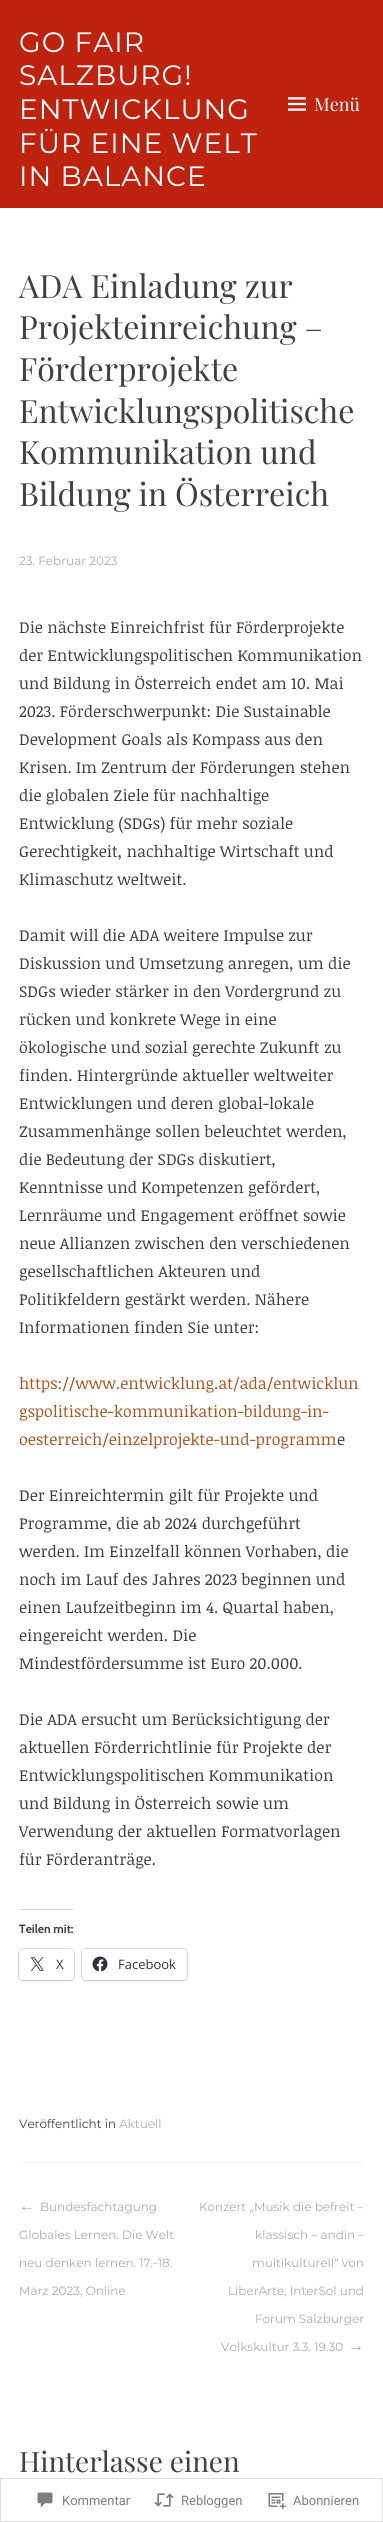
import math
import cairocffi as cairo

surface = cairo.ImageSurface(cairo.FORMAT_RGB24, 383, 2522)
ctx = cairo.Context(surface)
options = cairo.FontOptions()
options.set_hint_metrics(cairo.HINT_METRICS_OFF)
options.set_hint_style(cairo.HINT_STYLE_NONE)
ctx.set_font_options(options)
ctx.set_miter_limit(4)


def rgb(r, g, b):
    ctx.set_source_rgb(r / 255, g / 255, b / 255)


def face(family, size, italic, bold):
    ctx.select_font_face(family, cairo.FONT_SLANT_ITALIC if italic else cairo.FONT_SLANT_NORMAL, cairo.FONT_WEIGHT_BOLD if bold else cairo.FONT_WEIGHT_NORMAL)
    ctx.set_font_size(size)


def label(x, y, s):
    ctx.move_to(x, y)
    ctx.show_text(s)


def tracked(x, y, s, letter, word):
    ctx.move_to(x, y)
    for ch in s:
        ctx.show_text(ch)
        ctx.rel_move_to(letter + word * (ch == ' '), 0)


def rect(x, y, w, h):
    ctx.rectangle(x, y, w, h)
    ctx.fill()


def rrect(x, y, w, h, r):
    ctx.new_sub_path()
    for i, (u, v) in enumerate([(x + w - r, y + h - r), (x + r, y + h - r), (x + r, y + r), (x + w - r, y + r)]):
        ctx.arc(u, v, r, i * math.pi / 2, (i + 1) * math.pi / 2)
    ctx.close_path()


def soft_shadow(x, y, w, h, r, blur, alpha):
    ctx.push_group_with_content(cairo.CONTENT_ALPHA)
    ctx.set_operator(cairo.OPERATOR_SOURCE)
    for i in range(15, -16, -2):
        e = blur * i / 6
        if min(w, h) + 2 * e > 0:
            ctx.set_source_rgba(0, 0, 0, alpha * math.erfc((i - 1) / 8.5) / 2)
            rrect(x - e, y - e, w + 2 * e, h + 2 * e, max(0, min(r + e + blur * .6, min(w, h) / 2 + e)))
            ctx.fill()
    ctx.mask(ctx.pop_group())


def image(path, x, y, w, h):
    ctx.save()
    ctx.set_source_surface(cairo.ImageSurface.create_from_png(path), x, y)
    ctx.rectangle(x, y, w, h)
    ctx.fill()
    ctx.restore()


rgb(255, 255, 255)
ctx.paint()
rgb(189, 35, 14)
rect(0, 0, 383, 208)
face('Montserrat', 28, 0, 0)
rgb(255, 255, 255)
tracked(19, 52, 'GO FAIR', 1, 0)
tracked(19, 85, 'SALZBURG!', 1, 0)
tracked(19, 119, 'ENTWICKLUNG', 1, 0)
tracked(19, 153, 'FÜR EINE WELT', 1, 0)
tracked(19, 186, 'IN BALANCE', 1, 0)
image('image0.png', 288, 97, 18, 14)
face('Playfair Display', 18, 0, 0)
label(314, 111, 'Menü')
rgb(242, 242, 242)
rect(19, 2162, 345, 1)
face('Playfair Display', 32, 0, 0)
rgb(64, 64, 64)
label(19, 298, 'ADA Einladung zur')
label(19, 339, 'Projekteinreichung –')
label(19, 381, 'Förderprojekte')
label(19, 423, 'Entwicklungspolitische')
label(19, 464, 'Kommunikation und')
label(19, 506, 'Bildung in Österreich')
face('Montserrat', 12, 0, 0)
rgb(170, 170, 170)
label(19, 565, '23. Februar 2023')
face('Noticia Text', 16, 0, 0)
rgb(64, 64, 64)
label(19, 633, 'Die nächste Einreichfrist für Förderprojekte')
label(19, 661, 'der Entwicklungspolitischen Kommunikation')
label(19, 689, 'und Bildung in Österreich endet am 10. Mai')
label(19, 717, '2023. Förderschwerpunkt: Die Sustainable')
label(19, 745, 'Development Goals als Kompass aus den')
label(19, 773, 'Krisen. Im Zentrum der Förderungen stehen')
label(19, 801, 'die globalen Ziele für nachhaltige')
label(19, 829, 'Entwicklung (SDGs) für mehr soziale')
label(19, 857, 'Gerechtigkeit, nachhaltige Wirtschaft und')
label(19, 885, 'Klimaschutz weltweit.')
label(19, 941, 'Damit will die ADA weitere Impulse zur')
label(19, 969, 'Diskussion und Umsetzung anregen, um die')
label(19, 997, 'SDGs wieder stärker in den Vordergrund zu')
label(19, 1025, 'rücken und konkrete Wege in eine')
label(19, 1053, 'ökologische und sozial gerechte Zukunft zu')
label(19, 1081, 'finden. Hintergründe aktueller weltweiter')
label(19, 1109, 'Entwicklungen und deren global-lokale')
label(19, 1137, 'Zusammenhänge sollen beleuchtet werden,')
label(19, 1165, 'die Bedeutung der SDGs diskutiert,')
label(19, 1193, 'Kenntnisse und Kompetenzen gefördert,')
label(19, 1221, 'Lernräume und Engagement eröffnet sowie')
label(19, 1249, 'neue Allianzen zwischen den verschiedenen')
label(19, 1277, 'gesellschaftlichen Akteuren und')
label(19, 1305, 'Politikfeldern gestärkt werden. Nähere')
label(19, 1333, 'Informationen finden Sie unter:')
rgb(170, 86, 38)
label(19, 1389, 'https://www.entwicklung.at/ada/entwicklun')
label(19, 1417, 'gspolitische-kommunikation-bildung-in-')
label(19, 1445, 'oesterreich/einzelprojekte-und-programm')
rgb(64, 64, 64)
label(337, 1445, 'e')
label(19, 1501, 'Der Einreichtermin gilt für Projekte und')
label(19, 1529, 'Programme, die ab 2024 durchgeführt')
label(19, 1557, 'werden. Im Einzelfall können Vorhaben, die')
label(19, 1585, 'noch im Lauf des Jahres 2023 beginnen und')
label(19, 1613, 'einen Laufzeitbeginn im 4. Quartal haben,')
label(19, 1641, 'eingereicht werden. Die')
label(19, 1669, 'Mindestfördersumme ist Euro 20.000.')
label(19, 1725, 'Die ADA ersucht um Berücksichtigung der')
label(19, 1753, 'aktuellen Förderrichtlinie für Projekte der')
label(19, 1781, 'Entwicklungspolitischen Kommunikation')
label(19, 1809, 'und Bildung in Österreich sowie um')
label(19, 1837, 'Verwendung der aktuellen Formatvorlagen')
label(19, 1865, 'für Förderanträge.')
rgb(220, 220, 222)
rect(19, 1909, 55, 1)
face('Cabin', 12, 0, 1)
rgb(64, 64, 64)
label(19, 1933, 'Teilen mit:')
rrect(18.5, 1948.5, 56, 32, 4.5)
rgb(224, 224, 224)
ctx.set_line_width(1)
ctx.stroke()
rgb(0, 0, 0)
soft_shadow(19, 1950, 55, 31, 4, 1, 0.12)
rgb(255, 255, 255)
rrect(19, 1949, 55, 31, 4)
ctx.fill()
image('image1.png', 30, 1957, 14, 14)
face('Open Sans', 13, 0, 0)
rgb(44, 51, 56)
label(56, 1969, 'X')
rrect(81.5, 1948.5, 106, 32, 4.5)
rgb(224, 224, 224)
ctx.stroke()
rgb(0, 0, 0)
soft_shadow(82, 1950, 105, 31, 4, 1, 0.12)
rgb(255, 255, 255)
rrect(82, 1949, 105, 31, 4)
ctx.fill()
image('image2.png', 92, 1956, 16, 16)
rgb(44, 51, 56)
label(118, 1969, 'Facebook')
face('Montserrat', 12, 0, 0)
rgb(64, 64, 64)
label(19, 2128, 'Veröffentlicht in')
rgb(170, 170, 170)
label(119, 2128, 'Aktuell')
face('Liberation Sans', 16, 0, 0)
label(19, 2211, '←')
face('Montserrat', 12, 0, 0)
label(40, 2211, 'Bundesfachtagung')
label(19, 2239, 'Globales Lernen. Die Welt')
label(19, 2267, 'neu denken lernen. 17.-18.')
label(19, 2295, 'März 2023, Online')
label(199, 2211, 'Konzert „Musik die befreit –')
label(255, 2239, 'klassisch – andin –')
label(252, 2267, 'multikulturell“ von')
label(228, 2295, 'LiberArte, InterSol und')
label(255, 2323, 'Forum Salzburger')
label(221, 2351, 'Volkskultur 3.3. 19.30')
face('Liberation Sans', 16, 0, 0)
label(348, 2351, '→')
face('Playfair Display', 28, 0, 0)
rgb(64, 64, 64)
label(19, 2472, 'Hinterlasse einen')
ctx.rectangle(0.5, 2478.5, 382, 43)
rgb(221, 221, 223)
ctx.stroke()
image('image3.png', 37, 2492, 16, 16)
face('Roboto', 13, 0, 0)
rgb(123, 127, 132)
label(62, 2505, 'Kommentar')
image('image4.png', 154, 2493, 20, 14)
label(181, 2505, 'Rebloggen')
image('image5.png', 268, 2493, 18, 17)
label(293, 2505, 'Abonnieren')
surface.write_to_png('render.png')
